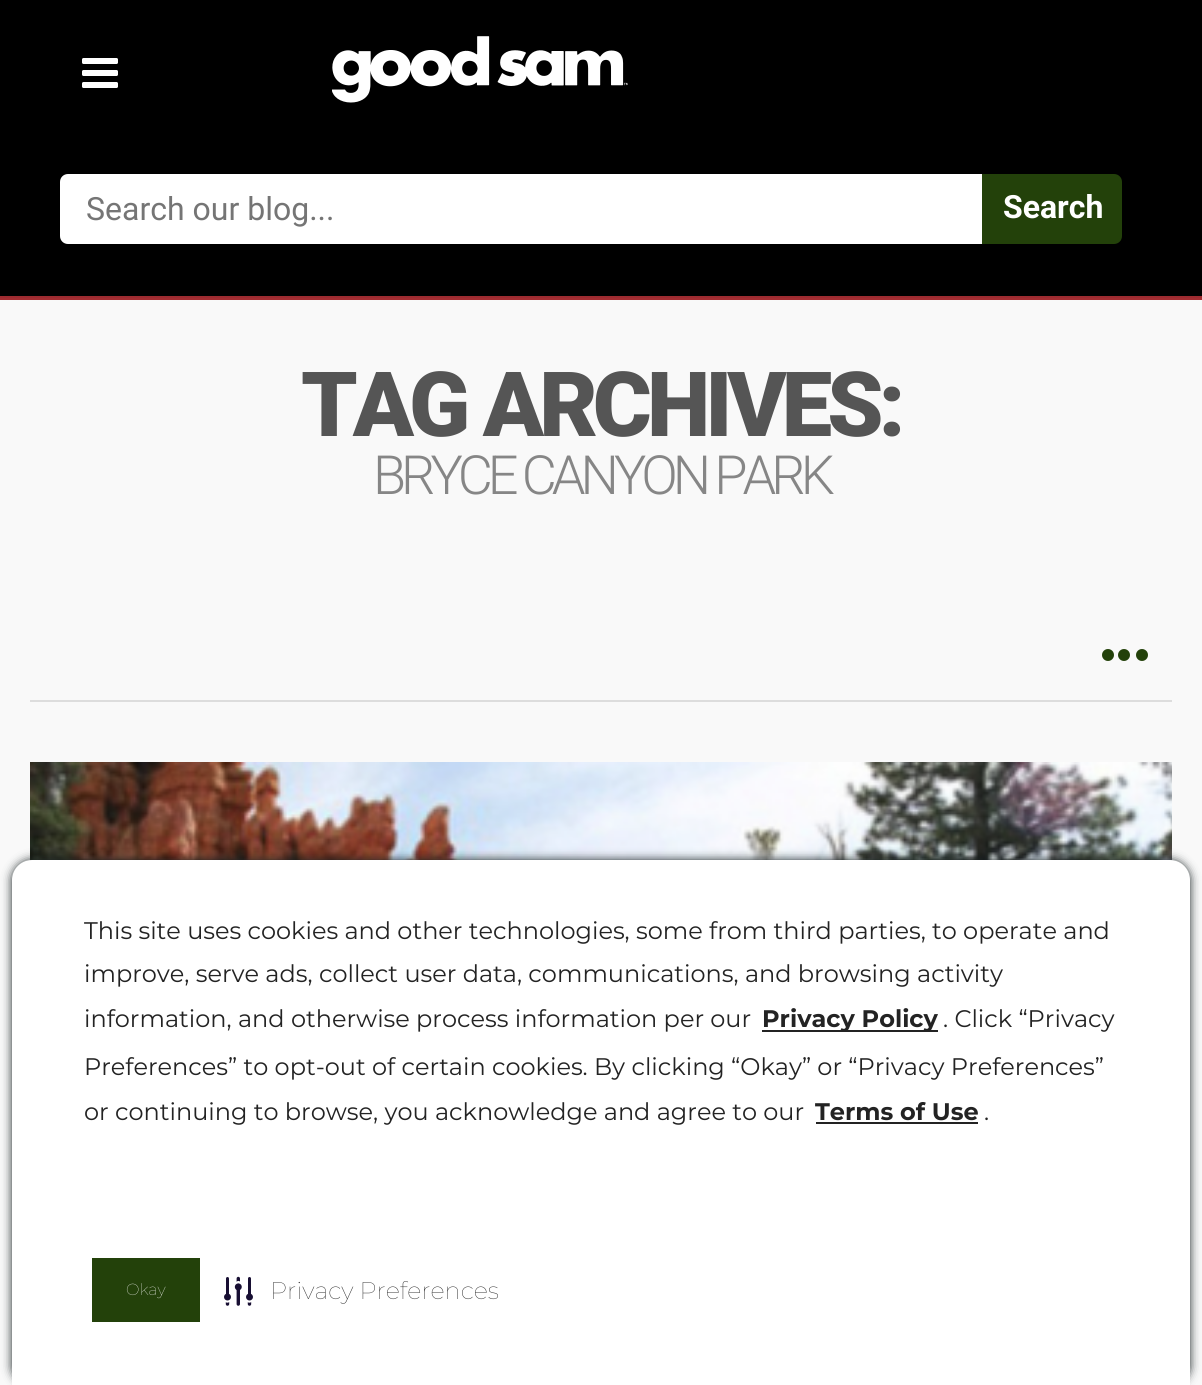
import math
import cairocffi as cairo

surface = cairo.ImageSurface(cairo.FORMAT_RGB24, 1202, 1385)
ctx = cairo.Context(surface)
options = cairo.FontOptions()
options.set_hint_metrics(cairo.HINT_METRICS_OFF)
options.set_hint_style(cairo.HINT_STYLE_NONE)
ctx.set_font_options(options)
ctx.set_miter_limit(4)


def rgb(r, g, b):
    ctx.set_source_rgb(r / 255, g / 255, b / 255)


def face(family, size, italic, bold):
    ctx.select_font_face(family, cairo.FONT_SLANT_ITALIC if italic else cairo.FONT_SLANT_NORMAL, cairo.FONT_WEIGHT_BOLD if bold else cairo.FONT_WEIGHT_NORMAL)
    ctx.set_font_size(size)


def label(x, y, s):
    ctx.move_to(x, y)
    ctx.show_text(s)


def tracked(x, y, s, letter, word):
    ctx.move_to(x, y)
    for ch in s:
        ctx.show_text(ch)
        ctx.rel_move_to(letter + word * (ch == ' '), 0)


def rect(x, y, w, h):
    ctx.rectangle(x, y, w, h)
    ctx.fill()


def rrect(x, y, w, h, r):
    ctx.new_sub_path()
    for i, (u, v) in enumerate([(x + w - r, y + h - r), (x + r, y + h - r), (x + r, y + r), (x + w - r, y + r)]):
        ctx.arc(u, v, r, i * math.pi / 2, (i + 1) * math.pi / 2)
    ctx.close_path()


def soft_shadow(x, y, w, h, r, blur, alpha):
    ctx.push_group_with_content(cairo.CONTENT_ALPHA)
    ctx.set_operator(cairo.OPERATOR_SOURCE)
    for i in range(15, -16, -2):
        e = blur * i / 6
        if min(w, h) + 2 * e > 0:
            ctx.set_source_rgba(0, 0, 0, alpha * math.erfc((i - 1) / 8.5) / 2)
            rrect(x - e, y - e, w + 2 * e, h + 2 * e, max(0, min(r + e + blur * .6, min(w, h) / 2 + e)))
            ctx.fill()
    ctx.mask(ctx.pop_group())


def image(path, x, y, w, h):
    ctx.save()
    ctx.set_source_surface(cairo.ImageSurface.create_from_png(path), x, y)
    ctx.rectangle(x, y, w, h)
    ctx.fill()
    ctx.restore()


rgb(249, 249, 249)
ctx.paint()
rgb(165, 45, 50)
rect(0, 298, 1202, 2)
rgb(157, 43, 48)
rect(0, 296, 1202, 2)
rgb(0, 0, 0)
rect(0, 0, 1202, 296)
image('image0.png', 82, 58, 36, 30)
image('image1.png', 332, 36, 296, 67)
rgb(255, 255, 255)
ctx.new_path()
ctx.move_to(68, 174)
ctx.line_to(1034, 174)
ctx.line_to(1034, 244)
ctx.line_to(68, 244)
ctx.curve_to(63.5, 244, 60, 240.5, 60, 236)
ctx.line_to(60, 182)
ctx.curve_to(60, 177.5, 63.5, 174, 68, 174)
ctx.close_path()
ctx.fill()
face('Roboto', 32, 0, 0)
rgb(117, 117, 117)
label(86, 220, 'Search our blog...')
rgb(35, 65, 10)
ctx.new_path()
ctx.move_to(982, 174)
ctx.line_to(1114, 174)
ctx.curve_to(1118.5, 174, 1122, 177.5, 1122, 182)
ctx.line_to(1122, 236)
ctx.curve_to(1122, 240.5, 1118.5, 244, 1114, 244)
ctx.line_to(982, 244)
ctx.close_path()
ctx.fill()
face('Roboto', 32, 0, 1)
rgb(255, 255, 255)
label(1003, 218, 'Search')
rgb(221, 221, 221)
rect(30, 700, 1142, 2)
face('Roboto Black', 90, 0, 0)
rgb(85, 85, 85)
tracked(301, 436, 'TAG ARCHIVES:', -5, 0)
face('Roboto Light', 54, 0, 0)
rgb(134, 134, 134)
tracked(373, 494, 'BRYCE CANYON PARK', -5, 0)
image('image2.png', 1102, 649, 12, 12)
image('image2.png', 1118, 649, 12, 12)
image('image2.png', 1136, 649, 12, 12)
image('image3.png', 30, 762, 1142, 99)
rgb(25, 34, 36)
soft_shadow(12, 860, 1178, 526, 20, 5, 1)
rgb(255, 255, 255)
ctx.new_path()
ctx.move_to(32, 860)
ctx.line_to(1170, 860)
ctx.curve_to(1181, 860, 1190, 869, 1190, 880)
ctx.line_to(1190, 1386)
ctx.line_to(12, 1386)
ctx.line_to(12, 880)
ctx.curve_to(12, 869, 21, 860, 32, 860)
ctx.close_path()
ctx.fill()
face('Montserrat', 24, 0, 0)
rgb(35, 35, 35)
label(84, 939, 'This site uses cookies and other technologies, some from third parties, to operate and')
label(84, 982, 'improve, serve ads, collect user data, communications, and browsing activity')
label(84, 1027, 'information, and otherwise process information per our')
rect(762, 1030, 176, 2)
face('Montserrat', 24, 0, 1)
label(762, 1027, 'Privacy Policy')
face('Montserrat', 24, 0, 0)
label(943, 1027, '. Click “Privacy')
label(84, 1075, 'Preferences” to opt-out of certain cookies. By clicking “Okay” or “Privacy Preferences”')
label(84, 1120, 'or continuing to browse, you acknowledge and agree to our')
face('Montserrat', 24, 0, 1)
label(815, 1120, 'Terms of Use')
rect(816, 1122, 162, 2)
face('Montserrat', 24, 0, 0)
label(984, 1120, '.')
rgb(35, 65, 10)
rect(92, 1258, 108, 64)
face('Montserrat Thin', 16, 0, 0)
rgb(255, 255, 255)
label(126, 1295, 'Okay')
image('image4.png', 224, 1276, 29, 30)
face('Montserrat Thin', 24, 0, 0)
rgb(35, 35, 35)
label(270, 1299, 'Privacy Preferences')
surface.write_to_png('render.png')
